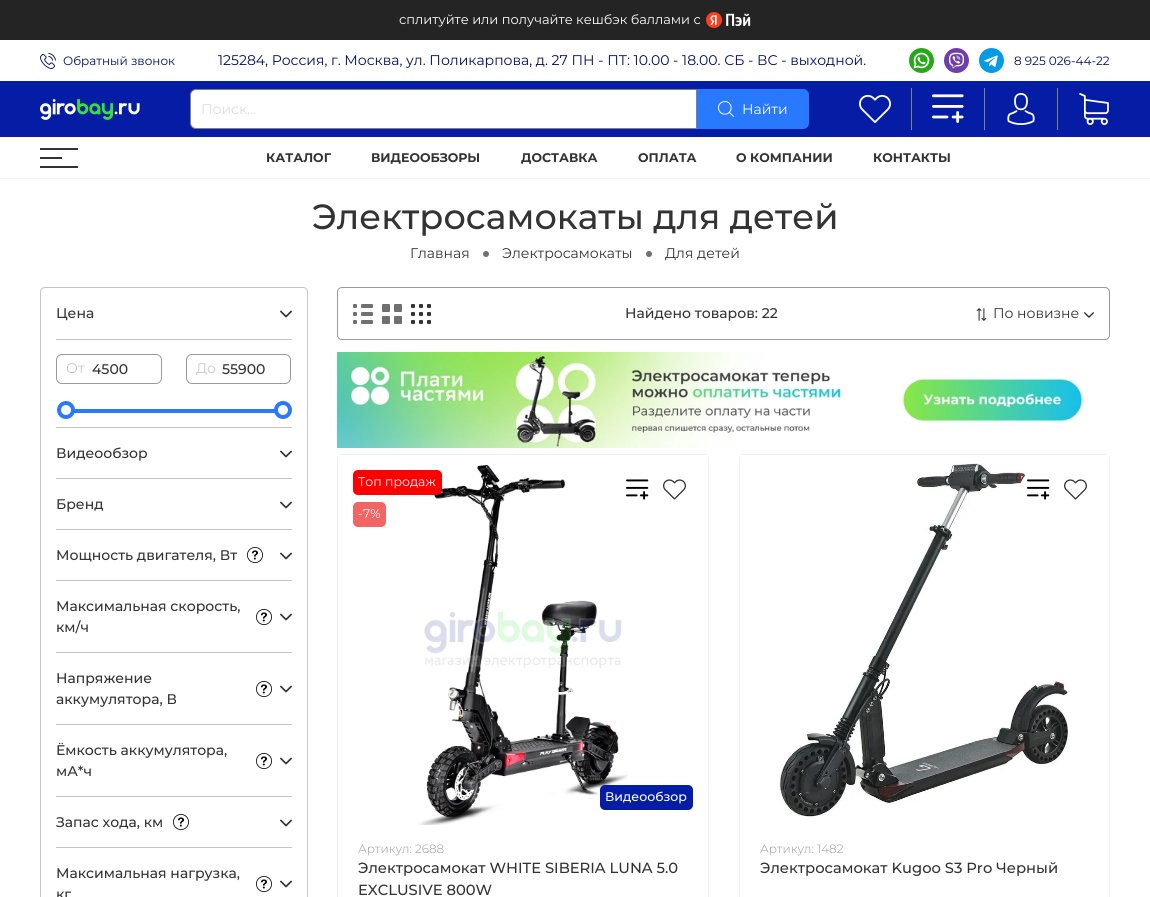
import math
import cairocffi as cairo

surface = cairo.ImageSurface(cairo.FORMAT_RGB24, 1150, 897)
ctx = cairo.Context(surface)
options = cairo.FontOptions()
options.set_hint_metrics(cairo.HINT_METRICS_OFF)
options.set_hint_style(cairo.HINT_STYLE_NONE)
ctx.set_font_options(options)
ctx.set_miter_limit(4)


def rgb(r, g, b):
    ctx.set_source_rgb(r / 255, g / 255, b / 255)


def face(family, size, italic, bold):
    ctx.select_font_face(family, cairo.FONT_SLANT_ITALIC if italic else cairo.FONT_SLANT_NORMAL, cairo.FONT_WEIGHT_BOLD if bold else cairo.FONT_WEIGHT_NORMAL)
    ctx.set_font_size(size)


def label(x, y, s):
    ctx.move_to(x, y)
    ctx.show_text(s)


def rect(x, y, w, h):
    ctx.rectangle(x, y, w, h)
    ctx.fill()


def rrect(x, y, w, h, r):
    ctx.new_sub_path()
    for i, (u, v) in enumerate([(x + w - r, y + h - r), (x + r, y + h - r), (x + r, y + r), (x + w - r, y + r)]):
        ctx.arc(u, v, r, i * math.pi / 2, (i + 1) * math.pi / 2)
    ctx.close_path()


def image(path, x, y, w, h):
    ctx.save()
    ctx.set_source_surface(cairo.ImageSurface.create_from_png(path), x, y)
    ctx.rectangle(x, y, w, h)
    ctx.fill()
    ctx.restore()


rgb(255, 255, 255)
ctx.paint()
rgb(36, 36, 36)
rect(0, 0, 1150, 40)
face('Montserrat', 13, 0, 0)
rgb(255, 255, 255)
label(399, 24, 'сплитуйте или получайте кешбэк баллами с')
image('image0.png', 706, 12, 45, 16)
image('image1.png', 40, 53, 16, 16)
face('Montserrat', 12, 0, 0)
rgb(1, 13, 96)
label(63, 65, 'Обратный звонок')
face('Montserrat', 14, 0, 0)
label(218, 65, '125284, Россия, г. Москва, ул. Поликарпова, д. 27 ПН - ПТ: 10.00 - 18.00. СБ - ВС - выходной.')
image('image2.png', 909, 48, 25, 25)
image('image3.png', 944, 48, 25, 25)
image('image4.png', 979, 48, 25, 25)
face('Montserrat', 12, 0, 0)
label(1014, 65, '8 925 026-44-22')
rgb(5, 29, 165)
rect(0, 81, 1150, 56)
image('image5.png', 40, 99, 100, 21)
rgb(255, 255, 255)
ctx.new_path()
ctx.move_to(196, 89.5)
ctx.line_to(696.5, 89.5)
ctx.line_to(696.5, 128.5)
ctx.line_to(196, 128.5)
ctx.curve_to(193, 128.5, 190.5, 126, 190.5, 123)
ctx.line_to(190.5, 95)
ctx.curve_to(190.5, 92, 193, 89.5, 196, 89.5)
ctx.close_path()
ctx.fill_preserve()
rgb(128, 128, 128)
ctx.set_line_width(1)
ctx.stroke()
face('Montserrat', 14, 0, 0)
rgb(221, 221, 221)
label(201, 114, 'Поиск...')
rgb(40, 121, 254)
ctx.new_path()
ctx.move_to(697, 89)
ctx.line_to(803, 89)
ctx.curve_to(806.5, 89, 809, 91.5, 809, 95)
ctx.line_to(809, 123)
ctx.curve_to(809, 126.5, 806.5, 129, 803, 129)
ctx.line_to(697, 129)
ctx.close_path()
ctx.fill()
image('image6.png', 718, 101, 16, 16)
rgb(255, 255, 255)
label(742, 114, 'Найти')
rgb(128, 128, 128)
rect(911, 88, 1, 42)
image('image7.png', 859, 94, 32, 29)
rect(984, 88, 1, 42)
image('image8.png', 932, 94, 32, 29)
rect(1057, 88, 1, 42)
image('image9.png', 1007, 93, 28, 32)
image('image10.png', 1079, 93, 30, 32)
rgb(244, 245, 247)
rect(0, 178, 1150, 1)
rgb(51, 51, 51)
rect(40, 148, 38, 2)
rect(40, 157, 22, 2)
rect(40, 166, 38, 2)
face('Montserrat', 12.5, 0, 1)
label(266, 162, 'КАТАЛОГ')
label(371, 162, 'ВИДЕООБЗОРЫ')
label(521, 162, 'ДОСТАВКА')
label(638, 162, 'ОПЛАТА')
label(736, 162, 'О КОМПАНИИ')
label(873, 162, 'КОНТАКТЫ')
face('Montserrat Medium', 35, 0, 0)
label(312, 229, 'Электросамокаты для детей')
face('Montserrat', 14, 0, 0)
label(410, 258, 'Главная')
rgb(112, 112, 112)
ctx.new_path()
ctx.arc(486, 254, 3, 0, 2 * math.pi)
ctx.fill()
rgb(51, 51, 51)
label(502, 258, 'Электросамокаты')
rgb(112, 112, 112)
ctx.new_path()
ctx.arc(649, 254, 3, 0, 2 * math.pi)
ctx.fill()
rgb(51, 51, 51)
label(665, 258, 'Для детей')
rrect(40.5, 287.5, 267, 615, 4.5)
rgb(197, 197, 197)
ctx.stroke()
face('Montserrat Medium', 14, 0, 0)
rgb(51, 51, 51)
label(56, 318, 'Цена')
image('image11.png', 280, 310, 12, 8)
rgb(197, 197, 197)
rect(56, 339, 236, 1)
rrect(56.5, 354.5, 105, 29, 5.5)
rgb(153, 153, 153)
ctx.stroke()
face('Montserrat', 14, 0, 0)
rgb(202, 202, 202)
label(66, 373, 'От')
face('Montserrat Medium', 14, 0, 0)
rgb(51, 51, 51)
label(92, 374, '4500')
rrect(186.5, 354.5, 104, 29, 5.5)
rgb(153, 153, 153)
ctx.stroke()
face('Montserrat', 14, 0, 0)
rgb(202, 202, 202)
label(196, 373, 'До')
face('Montserrat Medium', 14, 0, 0)
rgb(51, 51, 51)
label(222, 374, '55900')
rgb(40, 121, 254)
rect(74, 409, 209, 4)
rgb(255, 255, 255)
ctx.new_path()
ctx.arc(66, 410, 7, 0, 2 * math.pi)
ctx.fill_preserve()
rgb(40, 121, 254)
ctx.set_line_width(4)
ctx.stroke()
rgb(255, 255, 255)
ctx.arc(283, 410, 7, 0, 2 * math.pi)
ctx.fill_preserve()
rgb(40, 121, 254)
ctx.stroke()
rgb(197, 197, 197)
rect(56, 427, 236, 1)
rgb(51, 51, 51)
label(56, 458, 'Видеообзор')
image('image11.png', 280, 450, 12, 8)
rgb(197, 197, 197)
rect(56, 478, 236, 1)
rgb(51, 51, 51)
label(56, 509, 'Бренд')
image('image11.png', 280, 501, 12, 8)
rgb(197, 197, 197)
rect(56, 529, 236, 1)
rgb(51, 51, 51)
label(56, 560, 'Мощность двигателя, Вт')
image('image12.png', 247, 547, 16, 16)
image('image11.png', 280, 552, 12, 8)
rgb(197, 197, 197)
rect(56, 580, 236, 1)
rgb(51, 51, 51)
label(56, 611, 'Максимальная скорость,')
label(56, 632, 'км/ч')
image('image12.png', 256, 609, 16, 16)
image('image11.png', 280, 613, 12, 8)
rgb(197, 197, 197)
rect(56, 652, 236, 1)
rgb(51, 51, 51)
label(56, 683, 'Напряжение')
label(56, 704, 'аккумулятора, В')
image('image12.png', 256, 681, 16, 16)
image('image11.png', 280, 685, 12, 8)
rgb(197, 197, 197)
rect(56, 724, 236, 1)
rgb(51, 51, 51)
label(56, 755, 'Ёмкость аккумулятора,')
label(56, 776, 'мА*ч')
image('image12.png', 256, 753, 16, 16)
image('image11.png', 280, 757, 12, 8)
rgb(197, 197, 197)
rect(56, 796, 236, 1)
rgb(51, 51, 51)
label(56, 827, 'Запас хода, км')
image('image12.png', 173, 814, 16, 16)
image('image11.png', 280, 819, 12, 8)
rgb(197, 197, 197)
rect(56, 847, 236, 1)
rgb(51, 51, 51)
label(56, 878, 'Максимальная нагрузка,')
label(56, 899, 'кг')
image('image12.png', 256, 876, 16, 16)
image('image11.png', 280, 880, 12, 8)
rrect(337.5, 287.5, 772, 52, 4.5)
rgb(153, 153, 153)
ctx.set_line_width(1)
ctx.stroke()
rgb(112, 112, 112)
rrect(353, 304, 4, 4, 1)
ctx.fill()
rrect(361, 304, 12, 4, 1)
ctx.fill()
rrect(353, 312, 4, 4, 1)
ctx.fill()
rrect(361, 312, 12, 4, 1)
ctx.fill()
rrect(353, 320, 4, 4, 1)
ctx.fill()
rrect(361, 320, 12, 4, 1)
ctx.fill()
rrect(382, 304, 8, 8, 1)
ctx.fill()
rrect(394, 304, 8, 8, 1)
ctx.fill()
rrect(382, 316, 8, 8, 1)
ctx.fill()
rrect(394, 316, 8, 8, 1)
ctx.fill()
rgb(51, 51, 51)
rrect(411, 304, 4, 4, 1)
ctx.fill()
rrect(419, 304, 4, 4, 1)
ctx.fill()
rrect(427, 304, 4, 4, 1)
ctx.fill()
rrect(411, 312, 4, 4, 1)
ctx.fill()
rrect(419, 312, 4, 4, 1)
ctx.fill()
rrect(427, 312, 4, 4, 1)
ctx.fill()
rrect(411, 320, 4, 4, 1)
ctx.fill()
rrect(419, 320, 4, 4, 1)
ctx.fill()
rrect(427, 320, 4, 4, 1)
ctx.fill()
label(625, 318, 'Найдено товаров: 22')
image('image13.png', 976, 308, 11, 13)
face('Montserrat', 14, 0, 0)
label(993, 318, 'По новизне')
image('image14.png', 1084, 312, 10, 6)
image('image15.png', 337, 352, 746, 96)
rrect(337.5, 454.5, 371, 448, 4.5)
rgb(240, 240, 240)
ctx.stroke()
rgb(255, 255, 255)
rect(338, 455, 370, 3)
image('image16.png', 418, 465, 210, 360)
rgb(255, 0, 0)
rrect(353, 470, 89, 25, 5)
ctx.fill()
face('Montserrat', 12.5, 0, 0)
rgb(255, 255, 255)
label(358, 486, 'Топ продаж')
rgb(243, 100, 100)
rrect(353, 502, 33, 25, 5)
ctx.fill()
rgb(255, 255, 255)
label(358, 518, '-7%')
image('image17.png', 626, 479, 23, 21)
image('image18.png', 663, 479, 23, 21)
rgb(5, 29, 165)
rrect(600, 785, 93, 25, 5)
ctx.fill()
face('Montserrat Medium', 12.5, 0, 0)
rgb(255, 255, 255)
label(605, 801, 'Видеообзор')
face('Montserrat Light', 12, 0, 0)
rgb(153, 153, 153)
label(358, 853, 'Артикул: 2688')
face('Montserrat Medium', 14.7, 0, 0)
rgb(51, 51, 51)
label(358, 873, 'Электросамокат WHITE SIBERIA LUNA 5.0')
label(358, 895, 'EXCLUSIVE 800W')
rrect(739.5, 454.5, 370, 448, 4.5)
rgb(240, 240, 240)
ctx.stroke()
rgb(255, 255, 255)
rect(740, 455, 369, 3)
image('image19.png', 779, 463, 290, 355)
ctx.arc(1038.5, 488.5, 18.5, 0, 2 * math.pi)
ctx.fill()
image('image17.png', 1027, 479, 23, 21)
image('image18.png', 1064, 479, 23, 21)
face('Montserrat Light', 12, 0, 0)
rgb(153, 153, 153)
label(760, 853, 'Артикул: 1482')
face('Montserrat Medium', 14.7, 0, 0)
rgb(51, 51, 51)
label(760, 873, 'Электросамокат Kugoo S3 Pro Черный')
surface.write_to_png('render.png')
